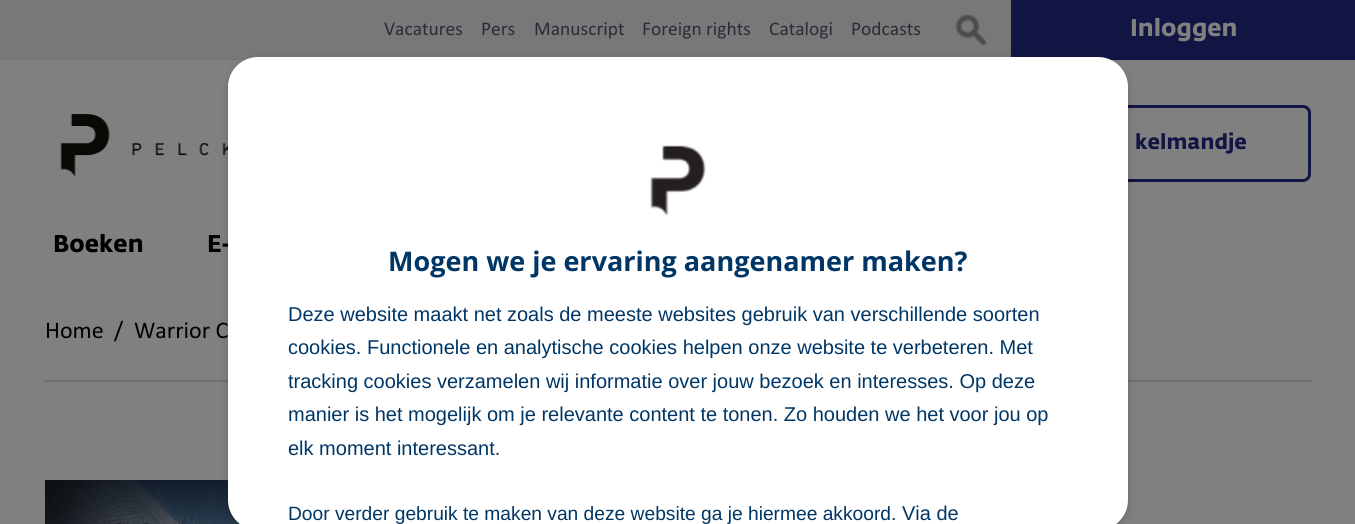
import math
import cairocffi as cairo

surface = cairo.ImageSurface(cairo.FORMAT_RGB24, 1355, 524)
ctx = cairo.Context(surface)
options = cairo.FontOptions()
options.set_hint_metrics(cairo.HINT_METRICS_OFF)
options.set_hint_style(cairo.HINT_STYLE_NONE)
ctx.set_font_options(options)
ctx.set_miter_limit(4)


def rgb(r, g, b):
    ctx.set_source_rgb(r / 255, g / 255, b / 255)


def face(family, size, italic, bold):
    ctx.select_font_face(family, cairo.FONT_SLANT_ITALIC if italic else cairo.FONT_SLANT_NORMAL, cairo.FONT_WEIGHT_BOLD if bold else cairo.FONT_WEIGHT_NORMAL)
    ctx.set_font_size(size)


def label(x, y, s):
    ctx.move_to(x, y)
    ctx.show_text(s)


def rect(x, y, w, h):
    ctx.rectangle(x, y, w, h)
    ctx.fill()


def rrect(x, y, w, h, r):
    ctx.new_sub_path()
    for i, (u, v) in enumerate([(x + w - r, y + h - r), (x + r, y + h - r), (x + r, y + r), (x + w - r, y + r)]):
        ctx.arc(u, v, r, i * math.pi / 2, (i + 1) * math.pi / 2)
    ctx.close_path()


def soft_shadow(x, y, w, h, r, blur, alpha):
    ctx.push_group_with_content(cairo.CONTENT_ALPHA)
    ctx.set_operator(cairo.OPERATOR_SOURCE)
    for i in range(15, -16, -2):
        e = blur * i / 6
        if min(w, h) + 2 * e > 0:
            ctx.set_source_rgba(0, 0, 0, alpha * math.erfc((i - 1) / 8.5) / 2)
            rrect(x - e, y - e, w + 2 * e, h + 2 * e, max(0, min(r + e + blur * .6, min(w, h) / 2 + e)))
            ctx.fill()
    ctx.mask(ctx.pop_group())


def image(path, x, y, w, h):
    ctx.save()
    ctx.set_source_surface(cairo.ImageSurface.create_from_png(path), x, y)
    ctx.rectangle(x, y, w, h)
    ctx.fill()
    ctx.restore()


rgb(128, 128, 128)
ctx.paint()
rgb(120, 120, 120)
rect(0, 0, 1011, 60)
image('image0.png', 60, 114, 168, 63)
image('image1.png', 955, 14, 32, 32)
rgb(18, 20, 67)
rect(1011, 0, 344, 60)
face('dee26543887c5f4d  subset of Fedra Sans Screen', 24, 0, 1)
rgb(128, 128, 128)
label(1130, 36, 'Inloggen')
rrect(960.5, 106.5, 349, 74, 6.5)
rgb(18, 20, 67)
ctx.set_line_width(3)
ctx.stroke()
face('dee26543887c5f4d  subset of Fedra Sans Screen', 21, 0, 1)
label(1135, 149, 'kelmandje')
face('dee26543887c5f4d  subset of Fedra Sans Screen', 24, 0, 1)
rgb(0, 0, 0)
label(53, 252, 'Boeken')
label(207, 252, 'E-')
face('Calibri', 19.5, 0, 0)
rgb(43, 44, 55)
label(384, 35, 'Vacatures')
label(481, 35, 'Pers')
label(534, 35, 'Manuscript')
label(642, 35, 'Foreign rights')
label(769, 35, 'Catalogi')
label(851, 35, 'Podcasts')
rgb(110, 110, 110)
rect(45, 380, 1266, 2)
face('Calibri', 24, 0, 0)
rgb(0, 0, 0)
label(45, 338, 'Home')
label(114, 338, '/')
label(134, 338, 'Warrior C')
image('image2.png', 45, 480, 195, 44)
rgb(0, 0, 0)
soft_shadow(228, 60, 900, 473, 30, 4, 0.2)
rgb(255, 255, 255)
rrect(228, 57, 900, 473, 30)
ctx.fill()
image('image3.png', 650, 145, 56, 71)
face('Open Sans', 27, 0, 1)
rgb(0, 54, 101)
label(388, 271, 'Mogen we je ervaring aangenamer maken?')
face('Liberation Sans', 20, 0, 0)
label(288, 321, 'Deze website maakt net zoals de meeste websites gebruik van verschillende soorten')
label(288, 354, 'cookies. Functionele en analytische cookies helpen onze website te verbeteren. Met')
label(288, 388, 'tracking cookies verzamelen wij informatie over jouw bezoek en interesses. Op deze')
label(288, 421, 'manier is het mogelijk om je relevante content te tonen. Zo houden we het voor jou op')
label(288, 455, 'elk moment interessant.')
face('Liberation Sans', 19.2, 0, 0)
label(288, 520, 'Door verder gebruik te maken van deze website ga je hiermee akkoord.')
face('Liberation Sans', 20, 0, 0)
label(902, 520, 'Via de')
surface.write_to_png('render.png')
